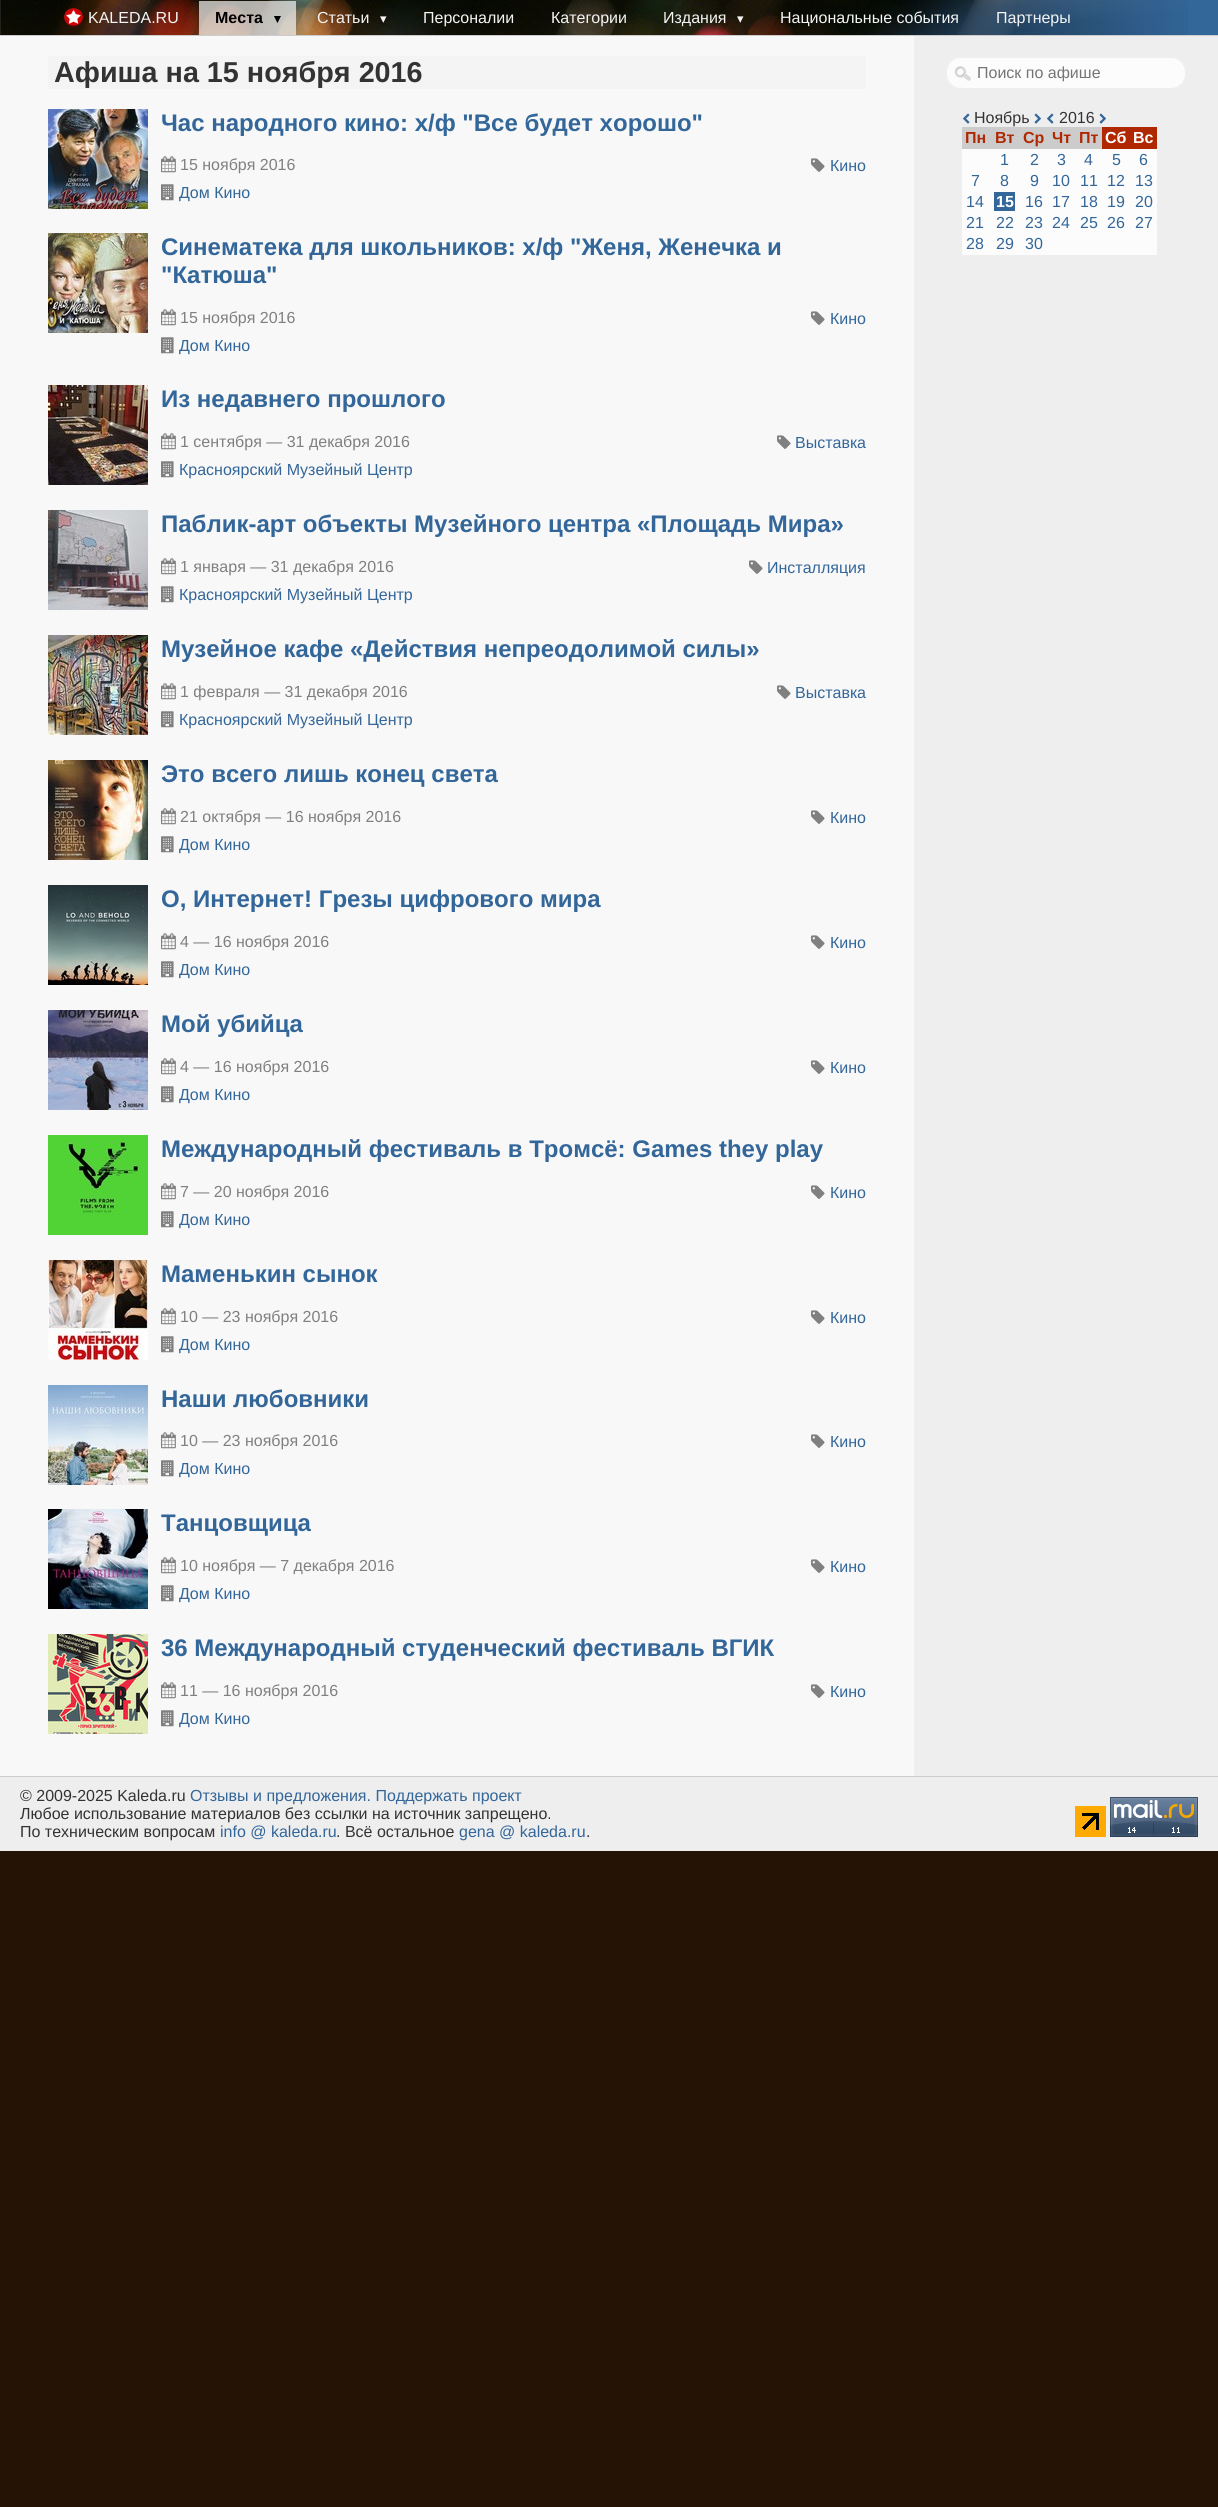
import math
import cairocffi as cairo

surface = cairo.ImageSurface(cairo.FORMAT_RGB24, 1218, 2507)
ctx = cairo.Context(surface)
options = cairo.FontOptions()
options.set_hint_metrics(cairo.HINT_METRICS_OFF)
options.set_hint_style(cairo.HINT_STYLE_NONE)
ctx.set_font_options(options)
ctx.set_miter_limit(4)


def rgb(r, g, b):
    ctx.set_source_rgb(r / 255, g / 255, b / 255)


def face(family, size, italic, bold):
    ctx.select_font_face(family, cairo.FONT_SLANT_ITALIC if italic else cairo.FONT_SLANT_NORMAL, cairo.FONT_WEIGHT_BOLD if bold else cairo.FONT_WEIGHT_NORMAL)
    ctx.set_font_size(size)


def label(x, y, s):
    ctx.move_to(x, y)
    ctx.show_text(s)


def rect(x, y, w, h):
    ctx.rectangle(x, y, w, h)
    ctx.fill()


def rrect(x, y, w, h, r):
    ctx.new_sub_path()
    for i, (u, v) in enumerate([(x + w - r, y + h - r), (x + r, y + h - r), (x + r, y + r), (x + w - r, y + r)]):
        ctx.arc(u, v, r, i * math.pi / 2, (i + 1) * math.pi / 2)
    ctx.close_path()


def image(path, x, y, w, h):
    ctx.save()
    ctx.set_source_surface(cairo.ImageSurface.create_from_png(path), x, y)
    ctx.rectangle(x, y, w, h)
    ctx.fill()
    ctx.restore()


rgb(37, 20, 5)
ctx.paint()
rgb(51, 102, 153)
rect(1188, 0, 30, 35)
image('image0.png', 0, 0, 1188, 35)
rgb(204, 204, 204)
rect(0, 35, 1218, 1)
image('image1.png', 64, 8, 19, 19)
face('Liberation Sans', 16, 0, 0)
rgb(244, 244, 244)
label(88, 23, 'KALEDA.RU')
ctx.set_source_rgba(0.957, 0.957, 0.957, 0.7)
rect(199, 1, 97, 34)
face('Liberation Sans', 16, 0, 1)
rgb(0, 0, 0)
label(215, 23, 'Места')
face('DejaVu Sans', 13, 0, 1)
label(274, 23, '▾')
face('Liberation Sans', 16, 0, 0)
rgb(244, 244, 244)
label(317, 23, 'Статьи')
face('DejaVu Sans', 13, 0, 0)
label(380, 23, '▾')
face('Liberation Sans', 16, 0, 0)
label(423, 23, 'Персоналии')
label(551, 23, 'Категории')
label(663, 23, 'Издания')
face('DejaVu Sans', 13, 0, 0)
label(737, 23, '▾')
face('Liberation Sans', 16, 0, 0)
label(780, 23, 'Национальные события')
label(996, 23, 'Партнеры')
rgb(248, 248, 248)
rect(0, 36, 914, 1740)
rgb(244, 244, 244)
rect(48, 56, 818, 33)
face('Liberation Sans', 28.75, 0, 1)
rgb(51, 51, 51)
label(54, 82, 'Афиша на 15 ноября 2016')
image('image2.png', 48, 109, 100, 100)
face('Liberation Sans', 24, 0, 1)
rgb(51, 102, 153)
label(161, 131, 'Час народного кино: х/ф "Все будет хорошо"')
image('image3.png', 161, 156, 15, 17)
face('Liberation Sans', 16, 0, 0)
rgb(128, 128, 128)
label(180, 170, '15 ноября 2016')
image('image4.png', 161, 184, 13, 17)
rgb(51, 102, 153)
label(179, 198, 'Дом Кино')
image('image5.png', 811, 158, 14, 14)
label(830, 171, 'Кино')
image('image6.png', 48, 233, 100, 100)
face('Liberation Sans', 24, 0, 1)
label(161, 255, 'Синематека для школьников: х/ф "Женя, Женечка и')
label(161, 283, '"Катюша"')
image('image3.png', 161, 309, 15, 17)
face('Liberation Sans', 16, 0, 0)
rgb(128, 128, 128)
label(180, 323, '15 ноября 2016')
image('image4.png', 161, 337, 13, 17)
rgb(51, 102, 153)
label(179, 351, 'Дом Кино')
image('image5.png', 811, 311, 14, 14)
label(830, 324, 'Кино')
image('image7.png', 48, 385, 100, 100)
face('Liberation Sans', 24, 0, 1)
label(161, 407, 'Из недавнего прошлого')
image('image3.png', 161, 433, 15, 17)
face('Liberation Sans', 16, 0, 0)
rgb(128, 128, 128)
label(180, 447, '1 сентября — 31 декабря 2016')
image('image4.png', 161, 461, 13, 17)
rgb(51, 102, 153)
label(179, 475, 'Красноярский Музейный Центр')
image('image5.png', 777, 435, 14, 14)
label(795, 448, 'Выставка')
image('image8.png', 48, 510, 100, 100)
face('Liberation Sans', 24, 0, 1)
label(161, 532, 'Паблик-арт объекты Музейного центра «Площадь Мира»')
image('image3.png', 161, 558, 15, 17)
face('Liberation Sans', 16, 0, 0)
rgb(128, 128, 128)
label(180, 572, '1 января — 31 декабря 2016')
image('image4.png', 161, 586, 13, 17)
rgb(51, 102, 153)
label(179, 600, 'Красноярский Музейный Центр')
image('image5.png', 749, 560, 14, 14)
label(767, 573, 'Инсталляция')
image('image9.png', 48, 635, 100, 100)
face('Liberation Sans', 24, 0, 1)
label(161, 657, 'Музейное кафе «Действия непреодолимой силы»')
image('image3.png', 161, 683, 15, 17)
face('Liberation Sans', 16, 0, 0)
rgb(128, 128, 128)
label(180, 697, '1 февраля — 31 декабря 2016')
image('image4.png', 161, 711, 13, 17)
rgb(51, 102, 153)
label(179, 725, 'Красноярский Музейный Центр')
image('image5.png', 777, 685, 14, 14)
label(795, 698, 'Выставка')
image('image10.png', 48, 760, 100, 100)
face('Liberation Sans', 24, 0, 1)
label(161, 782, 'Это всего лишь конец света')
image('image3.png', 161, 808, 15, 17)
face('Liberation Sans', 16, 0, 0)
rgb(128, 128, 128)
label(180, 822, '21 октября — 16 ноября 2016')
image('image4.png', 161, 836, 13, 17)
rgb(51, 102, 153)
label(179, 850, 'Дом Кино')
image('image5.png', 811, 810, 14, 14)
label(830, 823, 'Кино')
image('image11.png', 48, 885, 100, 100)
face('Liberation Sans', 24, 0, 1)
label(161, 907, 'О, Интернет! Грезы цифрового мира')
image('image3.png', 161, 933, 15, 17)
face('Liberation Sans', 16, 0, 0)
rgb(128, 128, 128)
label(180, 947, '4 — 16 ноября 2016')
image('image4.png', 161, 961, 13, 17)
rgb(51, 102, 153)
label(179, 975, 'Дом Кино')
image('image5.png', 811, 935, 14, 14)
label(830, 948, 'Кино')
image('image12.png', 48, 1010, 100, 100)
face('Liberation Sans', 24, 0, 1)
label(161, 1032, 'Мой убийца')
image('image3.png', 161, 1058, 15, 17)
face('Liberation Sans', 16, 0, 0)
rgb(128, 128, 128)
label(180, 1072, '4 — 16 ноября 2016')
image('image4.png', 161, 1086, 13, 17)
rgb(51, 102, 153)
label(179, 1100, 'Дом Кино')
image('image5.png', 811, 1060, 14, 14)
label(830, 1073, 'Кино')
image('image13.png', 48, 1135, 100, 100)
face('Liberation Sans', 24, 0, 1)
label(161, 1157, 'Международный фестиваль в Тромсё: Games they play')
image('image3.png', 161, 1183, 15, 17)
face('Liberation Sans', 16, 0, 0)
rgb(128, 128, 128)
label(180, 1197, '7 — 20 ноября 2016')
image('image4.png', 161, 1211, 13, 17)
rgb(51, 102, 153)
label(179, 1225, 'Дом Кино')
image('image5.png', 811, 1185, 14, 14)
label(830, 1198, 'Кино')
image('image14.png', 48, 1260, 100, 100)
face('Liberation Sans', 24, 0, 1)
label(161, 1282, 'Маменькин сынок')
image('image3.png', 161, 1308, 15, 17)
face('Liberation Sans', 16, 0, 0)
rgb(128, 128, 128)
label(180, 1322, '10 — 23 ноября 2016')
image('image4.png', 161, 1336, 13, 17)
rgb(51, 102, 153)
label(179, 1350, 'Дом Кино')
image('image5.png', 811, 1310, 14, 14)
label(830, 1323, 'Кино')
image('image15.png', 48, 1385, 100, 100)
face('Liberation Sans', 24, 0, 1)
label(161, 1407, 'Наши любовники')
image('image3.png', 161, 1432, 15, 17)
face('Liberation Sans', 16, 0, 0)
rgb(128, 128, 128)
label(180, 1446, '10 — 23 ноября 2016')
image('image4.png', 161, 1460, 13, 17)
rgb(51, 102, 153)
label(179, 1474, 'Дом Кино')
image('image5.png', 811, 1434, 14, 14)
label(830, 1447, 'Кино')
image('image16.png', 48, 1509, 100, 100)
face('Liberation Sans', 24, 0, 1)
label(161, 1531, 'Танцовщица')
image('image3.png', 161, 1557, 15, 17)
face('Liberation Sans', 16, 0, 0)
rgb(128, 128, 128)
label(180, 1571, '10 ноября — 7 декабря 2016')
image('image4.png', 161, 1585, 13, 17)
rgb(51, 102, 153)
label(179, 1599, 'Дом Кино')
image('image5.png', 811, 1559, 14, 14)
label(830, 1572, 'Кино')
image('image17.png', 48, 1634, 100, 100)
face('Liberation Sans', 24, 0, 1)
label(161, 1656, '36 Международный студенческий фестиваль ВГИК')
image('image3.png', 161, 1682, 15, 17)
face('Liberation Sans', 16, 0, 0)
rgb(128, 128, 128)
label(180, 1696, '11 — 16 ноября 2016')
image('image4.png', 161, 1710, 13, 17)
rgb(51, 102, 153)
label(179, 1724, 'Дом Кино')
image('image5.png', 811, 1684, 14, 14)
label(830, 1697, 'Кино')
rgb(238, 238, 238)
rect(914, 36, 304, 1740)
rgb(252, 252, 252)
rrect(946, 57, 240, 32, 15)
ctx.fill()
image('image18.png', 954, 66, 17, 15)
rrect(946.5, 57.5, 239, 31, 14.5)
rgb(238, 238, 238)
ctx.set_line_width(1)
ctx.stroke()
rgb(117, 117, 117)
label(977, 78, 'Поиск по афише')
image('image19.png', 963, 113, 7, 11)
rgb(51, 51, 51)
label(974, 123, 'Ноябрь')
image('image20.png', 1034, 113, 7, 11)
image('image19.png', 1047, 113, 7, 11)
label(1059, 123, '2016')
image('image20.png', 1099, 113, 7, 11)
rgb(252, 252, 252)
rect(962, 149, 195, 106)
rgb(204, 204, 204)
rect(962, 127, 140, 22)
face('Liberation Sans', 16, 0, 1)
rgb(176, 40, 2)
label(965, 143, 'Пн')
label(995, 143, 'Вт')
label(1023, 143, 'Ср')
label(1052, 143, 'Чт')
label(1079, 143, 'Пт')
rect(1102, 127, 55, 22)
rgb(255, 255, 255)
label(1105, 143, 'Сб')
label(1133, 143, 'Вс')
face('Liberation Sans', 16, 0, 0)
rgb(51, 102, 153)
label(1000, 165, '1')
label(1030, 165, '2')
label(1057, 165, '3')
label(1084, 165, '4')
label(1112, 165, '5')
label(1139, 165, '6')
label(971, 186, '7')
label(1000, 186, '8')
label(1030, 186, '9')
label(1052, 186, '10')
label(1080, 186, '11')
label(1107, 186, '12')
label(1135, 186, '13')
label(966, 207, '14')
rect(994, 192, 21, 19)
face('Liberation Sans', 16, 0, 1)
rgb(255, 255, 255)
label(996, 207, '15')
face('Liberation Sans', 16, 0, 0)
rgb(51, 102, 153)
label(1025, 207, '16')
label(1052, 207, '17')
label(1080, 207, '18')
label(1107, 207, '19')
label(1135, 207, '20')
label(966, 228, '21')
label(996, 228, '22')
label(1025, 228, '23')
label(1052, 228, '24')
label(1080, 228, '25')
label(1107, 228, '26')
label(1135, 228, '27')
label(966, 249, '28')
label(996, 249, '29')
label(1025, 249, '30')
rgb(238, 238, 238)
rect(0, 1777, 1218, 74)
rgb(204, 204, 204)
rect(0, 1776, 1218, 1)
rgb(51, 51, 51)
label(20, 1801, '© 2009-2025 Kaleda.ru')
rgb(51, 102, 153)
label(190, 1801, 'Oтзывы и предложения. Поддержать проект')
rgb(51, 51, 51)
label(20, 1819, 'Любое использование материалов без ссылки на источник запрещено.')
label(20, 1837, 'По техническим вопросам')
rgb(51, 102, 153)
label(220, 1837, 'info @ kaleda.ru')
rgb(51, 51, 51)
label(336, 1837, '. Всё остальное')
rgb(51, 102, 153)
label(459, 1837, 'gena @ kaleda.ru')
rgb(51, 51, 51)
label(586, 1837, '.')
image('image21.png', 1075, 1806, 31, 31)
image('image22.png', 1110, 1797, 88, 40)
surface.write_to_png('render.png')
